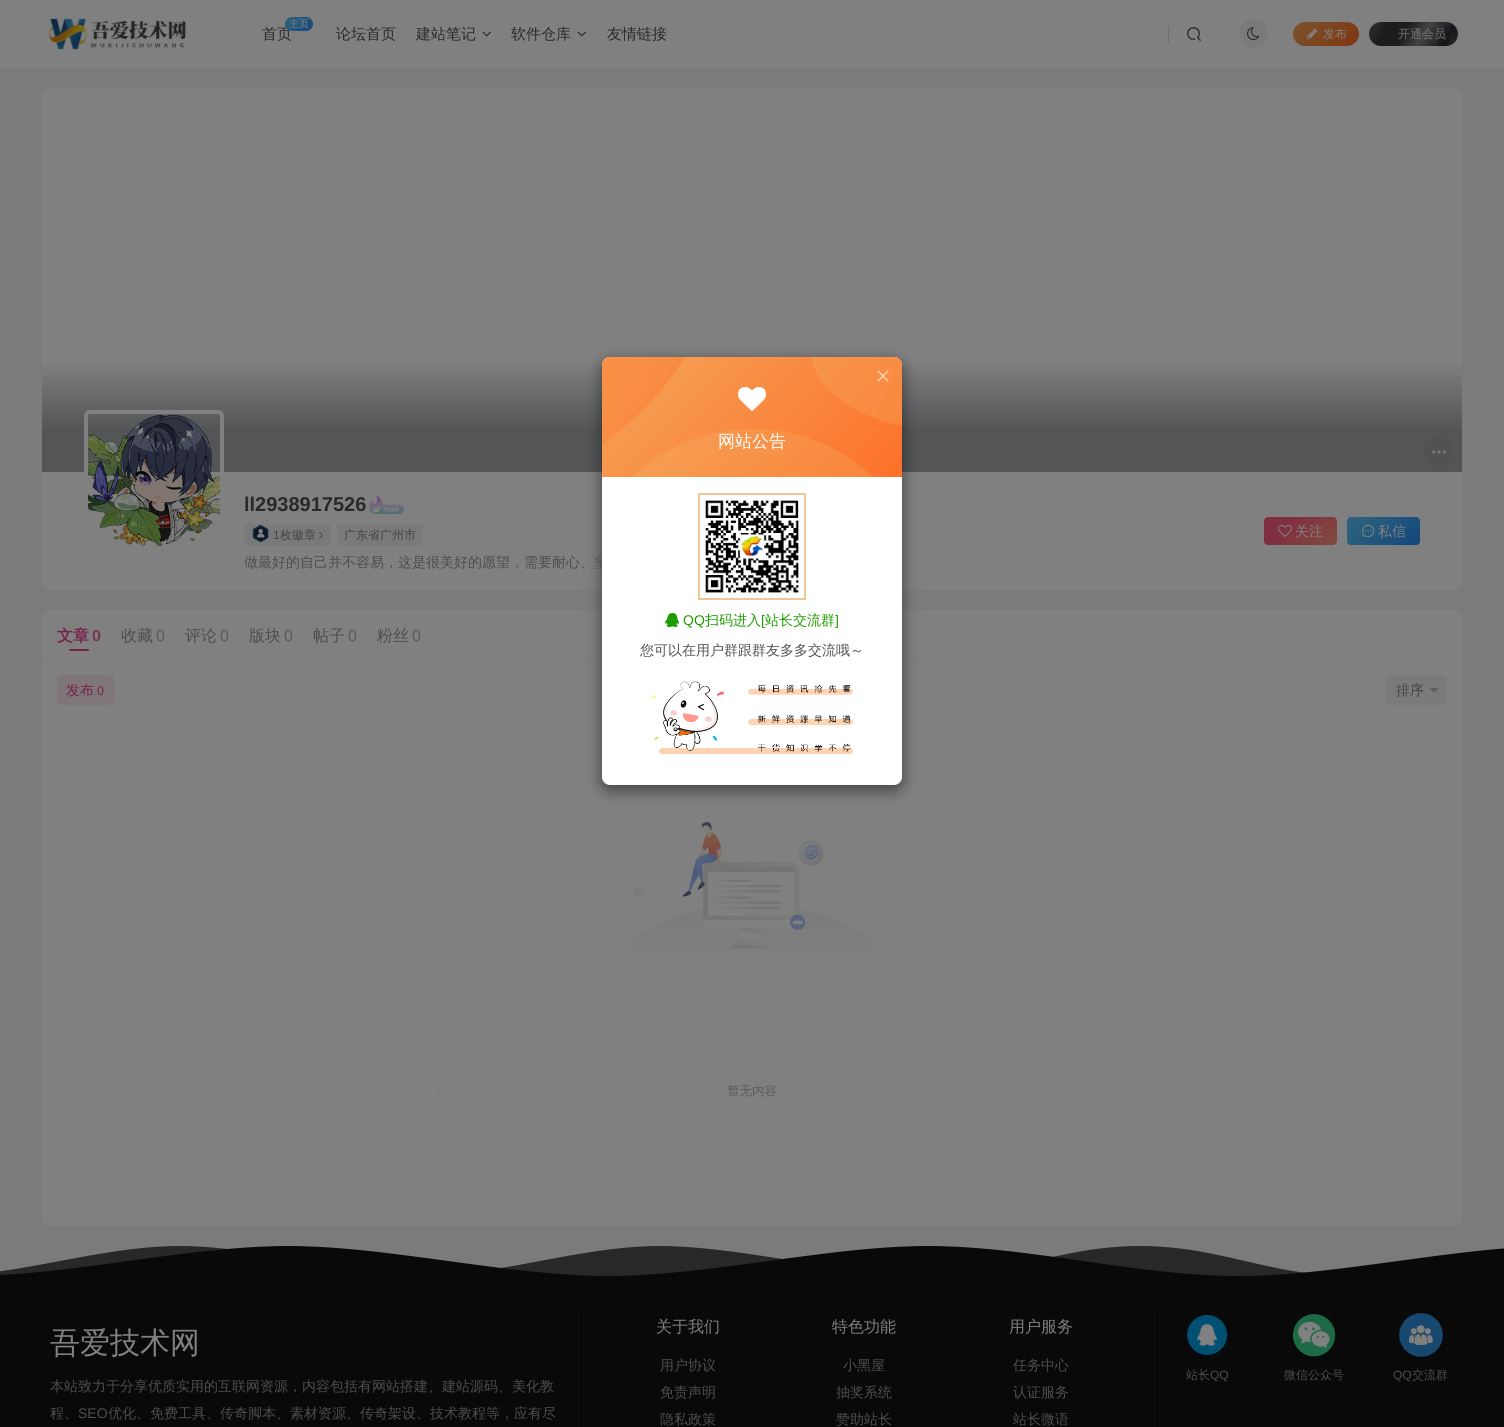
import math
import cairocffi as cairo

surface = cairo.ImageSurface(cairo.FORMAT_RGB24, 1504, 1427)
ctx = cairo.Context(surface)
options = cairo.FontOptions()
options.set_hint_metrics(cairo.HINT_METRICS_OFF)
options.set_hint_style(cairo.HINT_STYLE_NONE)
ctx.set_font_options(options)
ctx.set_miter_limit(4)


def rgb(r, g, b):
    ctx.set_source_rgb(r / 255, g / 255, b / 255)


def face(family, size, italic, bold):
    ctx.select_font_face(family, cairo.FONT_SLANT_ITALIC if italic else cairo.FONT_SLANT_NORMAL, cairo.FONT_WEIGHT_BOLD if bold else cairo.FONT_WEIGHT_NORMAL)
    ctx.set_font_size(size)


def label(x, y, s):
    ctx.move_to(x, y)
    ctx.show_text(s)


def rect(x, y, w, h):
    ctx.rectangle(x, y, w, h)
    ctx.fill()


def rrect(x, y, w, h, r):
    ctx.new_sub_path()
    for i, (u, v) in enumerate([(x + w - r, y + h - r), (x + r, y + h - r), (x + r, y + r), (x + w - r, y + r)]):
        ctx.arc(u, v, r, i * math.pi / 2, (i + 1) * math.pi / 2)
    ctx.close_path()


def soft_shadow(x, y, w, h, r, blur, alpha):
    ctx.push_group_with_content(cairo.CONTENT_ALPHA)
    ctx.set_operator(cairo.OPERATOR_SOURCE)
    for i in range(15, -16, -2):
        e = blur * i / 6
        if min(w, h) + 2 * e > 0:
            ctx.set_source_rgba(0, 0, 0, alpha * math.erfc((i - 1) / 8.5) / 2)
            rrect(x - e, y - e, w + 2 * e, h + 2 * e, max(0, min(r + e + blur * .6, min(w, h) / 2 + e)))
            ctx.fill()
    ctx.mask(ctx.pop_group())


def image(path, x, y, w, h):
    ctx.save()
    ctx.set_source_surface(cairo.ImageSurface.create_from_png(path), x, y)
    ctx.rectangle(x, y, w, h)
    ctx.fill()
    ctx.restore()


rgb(123, 123, 124)
ctx.paint()
rgb(128, 128, 128)
rect(0, 0, 1504, 68)
image('image0.png', 48, 18, 139, 32)
face('WenQuanYi Zen Hei Medium', 15, 0, 0)
rgb(39, 42, 44)
label(262, 39, '首页')
gradient = cairo.LinearGradient(288, 13, 309, 35)
gradient.add_color_stop_rgba(0.1, 0.176, 0.384, 0.494, 1)
gradient.add_color_stop_rgba(1, 0.075, 0.278, 0.486, 1)
ctx.set_source(gradient)
rrect(285, 17, 28, 14, 7)
ctx.fill()
face('WenQuanYi Zen Hei Medium', 10, 0, 0)
rgb(128, 128, 128)
label(289, 27, '主页')
face('WenQuanYi Zen Hei Medium', 15, 0, 0)
rgb(39, 42, 44)
label(336, 39, '论坛首页')
label(416, 39, '建站笔记')
image('image1.png', 482, 31, 9, 6)
label(511, 39, '软件仓库')
image('image1.png', 577, 31, 9, 6)
label(607, 39, '友情链接')
rgb(110, 111, 111)
rect(1168, 26, 1, 17)
image('image2.png', 1187, 27, 14, 14)
rgb(122, 122, 122)
ctx.arc(1253.5, 33.5, 14.5, 0, 2 * math.pi)
ctx.fill()
image('image3.png', 1247, 27, 13, 14)
gradient = cairo.LinearGradient(1304, 12, 1349, 57)
gradient.add_color_stop_rgba(0.1, 0.482, 0.314, 0.165, 1)
gradient.add_color_stop_rgba(1, 0.502, 0.208, 0.067, 1)
ctx.set_source(gradient)
rrect(1293, 22, 66, 24, 12)
ctx.fill()
image('image4.png', 1307, 28, 11, 11)
face('WenQuanYi Zen Hei Medium', 12, 0, 0)
rgb(128, 128, 128)
label(1323, 38, '发布')
gradient = cairo.LinearGradient(1452, 56, 1375, 12)
gradient.add_color_stop_rgba(0, 0.149, 0.153, 0.161, 1)
gradient.add_color_stop_rgba(0.15, 0.082, 0.082, 0.098, 1)
gradient.add_color_stop_rgba(0.4, 0.263, 0.263, 0.271, 1)
gradient.add_color_stop_rgba(0.6, 0.114, 0.114, 0.118, 1)
gradient.add_color_stop_rgba(0.8, 0.114, 0.11, 0.11, 1)
gradient.add_color_stop_rgba(1, 0.184, 0.188, 0.192, 1)
ctx.set_source(gradient)
rrect(1369, 22, 89, 24, 12)
ctx.fill()
rgb(39, 36, 35)
rect(1381, 25, 1, 1)
rgb(118, 112, 112)
label(1398, 38, '开通会员')
image('image5.png', 1419, 24, 39, 22)
rgb(128, 128, 128)
rrect(42, 88, 1420, 502, 8)
ctx.fill()
gradient = cairo.LinearGradient(752, 472, 752, 88)
gradient.add_color_stop_rgba(0.11, 0.059, 0.082, 0.098, 0.4)
gradient.add_color_stop_rgba(0.29, 0.059, 0.082, 0.098, 0)
ctx.set_source(gradient)
rect(42, 364, 1420, 108)
rgb(128, 128, 128)
rrect(42, 610, 1420, 616, 8)
ctx.fill()
rgb(122, 122, 122)
rect(47, 662, 1390, 1)
rgb(0, 0, 0)
soft_shadow(602, 362, 300, 428, 8, 7.5, 0.5)
face('WenQuanYi Zen Hei Medium', 14, 0, 0)
rgb(77, 77, 77)
label(244, 567, '做最好的自己并不容易，这是很美好的愿望，需要耐心、坚')
rgb(255, 255, 255)
rrect(602, 357, 300, 428, 8)
ctx.fill()
gradient = cairo.LinearGradient(662, 297, 902, 537)
gradient.add_color_stop_rgba(0.1, 0.961, 0.624, 0.329, 1)
gradient.add_color_stop_rgba(1, 1, 0.412, 0.133, 1)
ctx.set_source(gradient)
ctx.new_path()
ctx.move_to(610, 357)
ctx.line_to(894, 357)
ctx.curve_to(898.5, 357, 902, 360.5, 902, 365)
ctx.line_to(902, 477)
ctx.line_to(602, 477)
ctx.line_to(602, 365)
ctx.curve_to(602, 360.5, 605.5, 357, 610, 357)
ctx.close_path()
ctx.fill()
gradient = cairo.LinearGradient(599, 421, 906, 727)
gradient.add_color_stop_rgba(0.1, 0.961, 0.624, 0.329, 1)
gradient.add_color_stop_rgba(1, 1, 0.412, 0.133, 1)
ctx.set_source(gradient)
ctx.new_path()
ctx.move_to(752, 429)
ctx.curve_to(800, 429, 843, 448, 873, 477)
ctx.line_to(632, 477)
ctx.curve_to(662, 448, 705, 429, 752, 429)
ctx.close_path()
ctx.fill()
gradient = cairo.LinearGradient(316, 324, 743, 407)
gradient.add_color_stop_rgba(0.1, 0.961, 0.624, 0.329, 0.4)
gradient.add_color_stop_rgba(1, 1, 0.412, 0.133, 0.4)
ctx.set_source(gradient)
ctx.new_path()
ctx.move_to(610, 357)
ctx.line_to(685, 357)
ctx.curve_to(667, 387, 638, 418, 602, 445)
ctx.line_to(602, 365)
ctx.curve_to(602, 361, 606, 357, 610, 357)
ctx.close_path()
ctx.fill()
gradient = cairo.LinearGradient(823, 102, 1443, 405)
gradient.add_color_stop_rgba(0.1, 0.961, 0.624, 0.329, 0.6)
gradient.add_color_stop_rgba(1, 1, 0.412, 0.133, 0.6)
ctx.set_source(gradient)
ctx.new_path()
ctx.move_to(902, 426)
ctx.curve_to(865, 418, 820, 398, 811, 357)
ctx.line_to(894, 357)
ctx.curve_to(898, 357, 902, 361, 902, 365)
ctx.close_path()
ctx.fill()
image('image6.png', 877, 370, 12, 12)
image('image7.png', 738, 387, 28, 24)
face('WenQuanYi Zen Hei Medium', 17, 0, 0)
rgb(255, 255, 255)
label(718, 447, '网站公告')
ctx.rectangle(699, 494, 106, 105)
rgb(237, 200, 144)
ctx.stroke()
image('image8.png', 705, 500, 94, 93)
image('image9.png', 665, 613, 14, 14)
face('Liberation Sans', 14, 0, 0)
rgb(31, 156, 0)
label(683, 625, 'QQ')
face('WenQuanYi Zen Hei Medium', 14, 0, 0)
label(705, 625, '扫码进入')
face('Liberation Sans', 14, 0, 0)
label(761, 625, '[')
face('WenQuanYi Zen Hei Medium', 14, 0, 0)
label(765, 625, '站长交流群')
face('Liberation Sans', 14, 0, 0)
label(835, 625, ']')
face('WenQuanYi Zen Hei Medium', 14, 0, 0)
rgb(78, 83, 88)
label(640, 655, '您可以在用户群跟群友多多交流哦～')
image('image10.png', 652, 681, 201, 73)
rgb(80, 82, 84)
ctx.arc(1438.5, 451.5, 14.5, 0, 2 * math.pi)
ctx.fill()
image('image11.png', 1432, 450, 14, 4)
rrect(86, 412, 136, 136, 4)
rgb(128, 128, 128)
ctx.set_line_width(4)
ctx.stroke()
image('image12.png', 88, 414, 132, 132)
face('Liberation Sans', 20, 0, 1)
rgb(39, 42, 44)
label(244, 511, 'll2938917526')
image('image13.png', 369, 495, 36, 19)
rgb(122, 122, 122)
rrect(244, 524, 87, 22, 4)
ctx.fill()
image('image14.png', 252, 525, 17, 18)
face('Liberation Sans', 12, 0, 0)
rgb(68, 68, 68)
label(273, 539, '1')
face('WenQuanYi Zen Hei Medium', 12, 0, 0)
label(280, 539, '枚徽章')
image('image15.png', 319, 531, 4, 8)
rgb(122, 122, 122)
rrect(337, 524, 86, 22, 4)
ctx.fill()
rgb(68, 68, 68)
label(344, 539, '广东省广州市')
gradient = cairo.LinearGradient(1275, 506, 1326, 556)
gradient.add_color_stop_rgba(0.3, 0.502, 0.184, 0.251, 1)
gradient.add_color_stop_rgba(1, 0.502, 0.294, 0.247, 1)
ctx.set_source(gradient)
rrect(1264, 517, 73, 28, 4)
ctx.fill()
image('image16.png', 1278, 525, 14, 12)
face('WenQuanYi Zen Hei Medium', 14, 0, 0)
rgb(128, 128, 128)
label(1295, 536, '关注')
gradient = cairo.LinearGradient(1358, 506, 1409, 556)
gradient.add_color_stop_rgba(0.1, 0.176, 0.384, 0.494, 1)
gradient.add_color_stop_rgba(1, 0.075, 0.278, 0.486, 1)
ctx.set_source(gradient)
rrect(1347, 517, 73, 28, 4)
ctx.fill()
image('image17.png', 1362, 524, 13, 14)
rgb(128, 128, 128)
label(1378, 536, '私信')
face('WenQuanYi Zen Hei', 16, 0, 1)
rgb(120, 34, 74)
label(57, 641, '文章')
face('Liberation Sans', 16, 0, 1)
rgb(122, 53, 85)
label(92, 641, '0')
rgb(120, 34, 74)
rrect(69, 649, 20, 2, 1)
ctx.fill()
face('WenQuanYi Zen Hei Medium', 16, 0, 0)
rgb(77, 77, 77)
label(121, 641, '收藏')
face('Liberation Sans', 16, 0, 0)
rgb(89, 89, 89)
label(156, 641, '0')
face('WenQuanYi Zen Hei Medium', 16, 0, 0)
rgb(77, 77, 77)
label(185, 641, '评论')
face('Liberation Sans', 16, 0, 0)
rgb(89, 89, 89)
label(220, 641, '0')
face('WenQuanYi Zen Hei Medium', 16, 0, 0)
rgb(77, 77, 77)
label(249, 641, '版块')
face('Liberation Sans', 16, 0, 0)
rgb(89, 89, 89)
label(284, 641, '0')
face('WenQuanYi Zen Hei Medium', 16, 0, 0)
rgb(77, 77, 77)
label(313, 641, '帖子')
face('Liberation Sans', 16, 0, 0)
rgb(89, 89, 89)
label(348, 641, '0')
face('WenQuanYi Zen Hei Medium', 16, 0, 0)
rgb(77, 77, 77)
label(377, 641, '粉丝')
face('Liberation Sans', 16, 0, 0)
rgb(89, 89, 89)
label(412, 641, '0')
rgb(127, 118, 122)
rrect(57, 675, 57, 30, 4)
ctx.fill()
face('WenQuanYi Zen Hei Medium', 14, 0, 0)
rgb(120, 34, 74)
label(66, 695, '发布')
face('Liberation Sans', 12.5, 0, 0)
label(97, 695, '0')
rgb(122, 122, 122)
rrect(1386, 675, 61, 30, 4)
ctx.fill()
face('WenQuanYi Zen Hei Medium', 14, 0, 0)
rgb(68, 68, 68)
label(1396, 695, '排序')
image('image18.png', 1430, 688, 8, 5)
image('image19.png', 629, 822, 246, 129)
rgb(122, 122, 122)
rect(436, 1092, 278, 1)
face('WenQuanYi Zen Hei Medium', 12.5, 0, 0)
rgb(89, 89, 89)
label(727, 1095, '暂无内容')
rgb(122, 122, 122)
rect(790, 1092, 278, 1)
image('image20.png', 0, 1246, 1306, 30)
image('image21.png', 0, 1246, 1504, 30)
rgb(9, 9, 9)
rect(0, 1276, 1504, 151)
face('WenQuanYi Zen Hei Medium', 30, 0, 0)
rgb(128, 128, 128)
label(50, 1353, '吾爱技术网')
rgb(17, 17, 21)
rect(578, 1306, 1, 121)
face('WenQuanYi Zen Hei Medium', 14, 0, 0)
rgb(77, 77, 77)
label(50, 1391, '本站致力于分享优质实用的互联网资源，内容包括有网站搭建、建站源码、美化教')
label(50, 1418, '程、')
face('Liberation Sans', 14, 0, 0)
label(78, 1418, 'SEO')
face('WenQuanYi Zen Hei Medium', 14, 0, 0)
label(108, 1418, '优化、免费工具、传奇脚本、素材资源、传奇架设、技术教程等，应有尽')
face('WenQuanYi Zen Hei Medium', 16, 0, 0)
rgb(128, 128, 128)
label(656, 1332, '关于我们')
face('WenQuanYi Zen Hei Medium', 14, 0, 0)
rgb(77, 77, 77)
label(660, 1370, '用户协议')
label(660, 1397, '免责声明')
label(660, 1424, '隐私政策')
face('WenQuanYi Zen Hei Medium', 16, 0, 0)
rgb(128, 128, 128)
label(832, 1332, '特色功能')
face('WenQuanYi Zen Hei Medium', 14, 0, 0)
rgb(77, 77, 77)
label(843, 1370, '小黑屋')
label(836, 1397, '抽奖系统')
label(836, 1424, '赞助站长')
face('WenQuanYi Zen Hei Medium', 16, 0, 0)
rgb(128, 128, 128)
label(1009, 1332, '用户服务')
face('WenQuanYi Zen Hei Medium', 14, 0, 0)
rgb(77, 77, 77)
label(1013, 1370, '任务中心')
label(1013, 1397, '认证服务')
label(1013, 1424, '站长微语')
rgb(17, 17, 21)
rect(1154, 1306, 1, 121)
image('image22.png', 1187, 1315, 41, 40)
face('WenQuanYi Zen Hei Medium', 12, 0, 0)
rgb(77, 77, 77)
label(1186, 1379, '站长')
face('Liberation Sans', 12, 0, 0)
label(1210, 1379, 'QQ')
image('image23.png', 1292, 1314, 44, 43)
face('WenQuanYi Zen Hei Medium', 12, 0, 0)
label(1284, 1379, '微信公众号')
image('image24.png', 1399, 1313, 44, 44)
face('Liberation Sans', 12, 0, 0)
label(1393, 1379, 'QQ')
face('WenQuanYi Zen Hei Medium', 12, 0, 0)
label(1412, 1379, '交流群')
surface.write_to_png('render.png')
